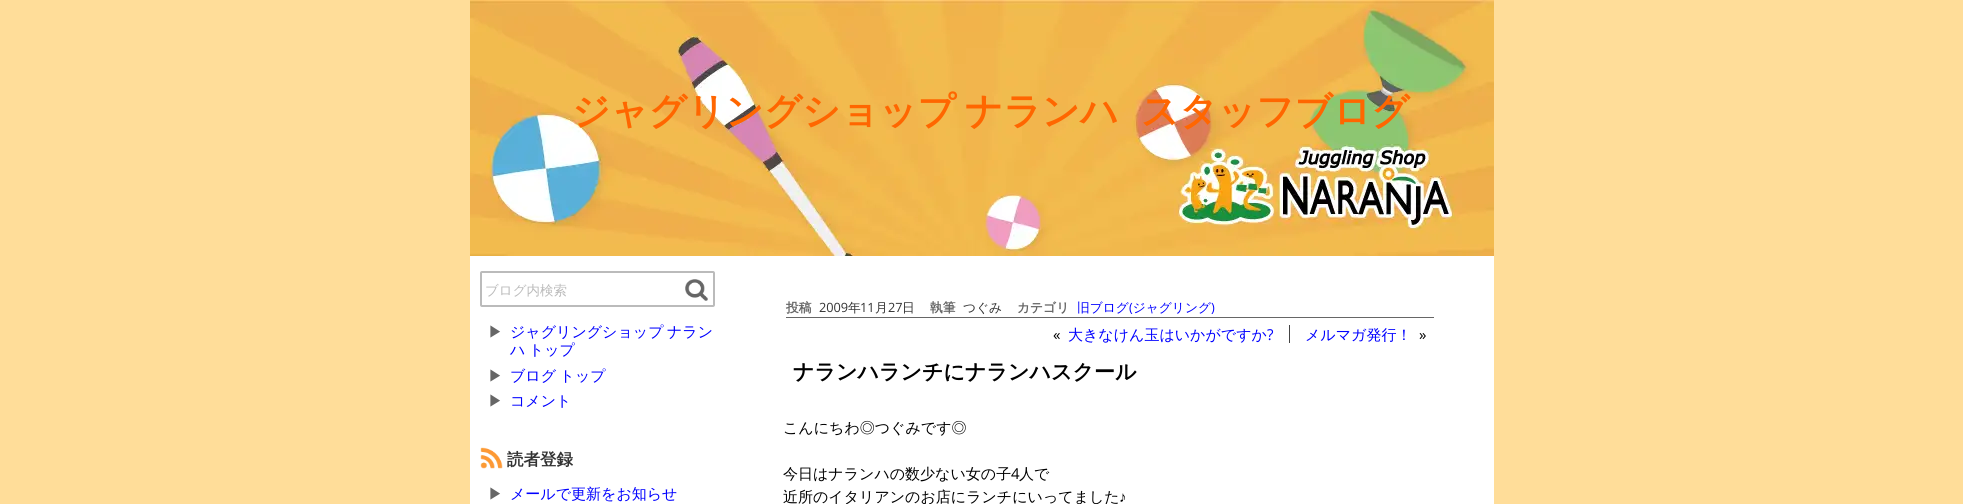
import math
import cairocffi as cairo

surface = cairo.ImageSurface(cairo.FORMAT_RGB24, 1963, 504)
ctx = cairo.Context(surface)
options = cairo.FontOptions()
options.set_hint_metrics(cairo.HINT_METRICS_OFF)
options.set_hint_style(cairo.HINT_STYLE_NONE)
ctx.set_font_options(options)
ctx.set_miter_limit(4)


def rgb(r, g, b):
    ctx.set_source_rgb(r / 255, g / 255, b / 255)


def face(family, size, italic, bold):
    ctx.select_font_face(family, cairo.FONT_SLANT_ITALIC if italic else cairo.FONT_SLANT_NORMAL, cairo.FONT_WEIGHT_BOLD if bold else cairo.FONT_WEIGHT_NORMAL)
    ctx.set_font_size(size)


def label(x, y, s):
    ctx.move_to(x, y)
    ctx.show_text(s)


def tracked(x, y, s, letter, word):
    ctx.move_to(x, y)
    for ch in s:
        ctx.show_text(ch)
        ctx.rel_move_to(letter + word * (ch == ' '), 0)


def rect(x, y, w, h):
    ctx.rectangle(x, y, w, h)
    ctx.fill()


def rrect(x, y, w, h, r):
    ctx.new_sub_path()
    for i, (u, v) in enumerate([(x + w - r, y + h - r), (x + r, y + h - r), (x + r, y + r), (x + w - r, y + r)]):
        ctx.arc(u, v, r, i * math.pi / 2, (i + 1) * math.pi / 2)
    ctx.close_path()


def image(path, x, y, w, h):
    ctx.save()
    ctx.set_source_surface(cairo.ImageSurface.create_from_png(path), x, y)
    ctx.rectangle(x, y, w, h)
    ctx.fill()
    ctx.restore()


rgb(255, 221, 153)
ctx.paint()
rgb(255, 255, 255)
rect(470, 256, 1024, 248)
image('image0.png', 470, 0, 1024, 256)
face('WenQuanYi Zen Hei', 37.5, 0, 1)
rgb(255, 102, 0)
tracked(572, 124, 'ジャグリングショップ ナランハ', 0, -2)
label(1141, 124, 'スタッフブログ')
rrect(481, 272, 233, 34, 1)
rgb(187, 187, 187)
ctx.stroke()
face('WenQuanYi Zen Hei Medium', 13.5, 0, 0)
label(485, 295, 'ブログ内検索')
image('image1.png', 685, 279, 23, 22)
face('WenQuanYi Zen Hei Medium', 15, 0, 0)
rgb(102, 102, 102)
label(488, 337, '▶')
rgb(0, 0, 255)
tracked(510, 337, 'ジャグリングショップ ナラン', 0, -1)
tracked(510, 355, 'ハ トップ', 0, -1)
rgb(102, 102, 102)
label(488, 381, '▶')
rgb(0, 0, 255)
tracked(510, 381, 'ブログ トップ', 0, -1)
rgb(102, 102, 102)
label(488, 406, '▶')
rgb(0, 0, 255)
label(510, 406, 'コメント')
image('image2.png', 480, 447, 23, 22)
face('WenQuanYi Zen Hei', 16.5, 0, 1)
rgb(51, 51, 51)
label(507, 465, '読者登録')
face('WenQuanYi Zen Hei Medium', 15, 0, 0)
rgb(102, 102, 102)
label(488, 499, '▶')
rgb(0, 0, 255)
label(510, 499, 'メールで更新をお知らせ')
rgb(102, 102, 102)
rect(786, 317, 648, 1)
face('WenQuanYi Zen Hei', 12.75, 0, 1)
label(786, 312, '投稿')
face('Open Sans', 12.75, 0, 0)
rgb(51, 51, 51)
label(819, 312, '2009')
face('WenQuanYi Zen Hei Medium', 12.75, 0, 0)
label(848, 312, '年')
face('Open Sans', 12.75, 0, 0)
label(860, 312, '11')
face('WenQuanYi Zen Hei Medium', 12.75, 0, 0)
label(875, 312, '月')
face('Open Sans', 12.75, 0, 0)
label(888, 312, '27')
face('WenQuanYi Zen Hei Medium', 12.75, 0, 0)
label(902, 312, '日')
face('WenQuanYi Zen Hei', 12.75, 0, 1)
rgb(102, 102, 102)
label(930, 312, '執筆')
face('WenQuanYi Zen Hei Medium', 12.75, 0, 0)
rgb(51, 51, 51)
label(963, 312, 'つぐみ')
face('WenQuanYi Zen Hei', 12.75, 0, 1)
rgb(102, 102, 102)
label(1017, 312, 'カテゴリ')
face('WenQuanYi Zen Hei Medium', 12.75, 0, 0)
rgb(0, 0, 255)
label(1077, 312, '旧ブログ ジャグリング')
face('Open Sans', 12.75, 0, 0)
label(1129, 312, '(')
label(1211, 312, ')')
face('Open Sans', 15, 0, 0)
rgb(0, 0, 0)
label(1053, 340, '«')
face('WenQuanYi Zen Hei Medium', 15, 0, 0)
rgb(0, 0, 255)
label(1068, 340, '大きなけん玉はいかがですか')
face('Open Sans', 15, 0, 0)
label(1267, 340, '?')
rgb(68, 68, 68)
rect(1289, 325, 1, 18)
face('WenQuanYi Zen Hei Medium', 15, 0, 0)
rgb(0, 0, 255)
label(1305, 340, 'メルマガ発行！')
face('Open Sans', 15, 0, 0)
rgb(0, 0, 0)
label(1419, 340, '»')
face('WenQuanYi Zen Hei', 21, 0, 1)
label(793, 379, 'ナランハランチにナランハスクール')
face('WenQuanYi Zen Hei Medium', 15, 0, 0)
label(783, 433, 'こんにちわ◎つぐみです◎')
label(783, 479, '今日はナランハの数少ない女の子')
face('Open Sans', 15, 0, 0)
label(1011, 479, '4')
face('WenQuanYi Zen Hei Medium', 15, 0, 0)
label(1019, 479, '人で')
label(783, 502, '近所のイタリアンのお店にランチにいってました')
face('Liberation Sans', 15, 0, 0)
label(1119, 502, '♪')
surface.write_to_png('render.png')
